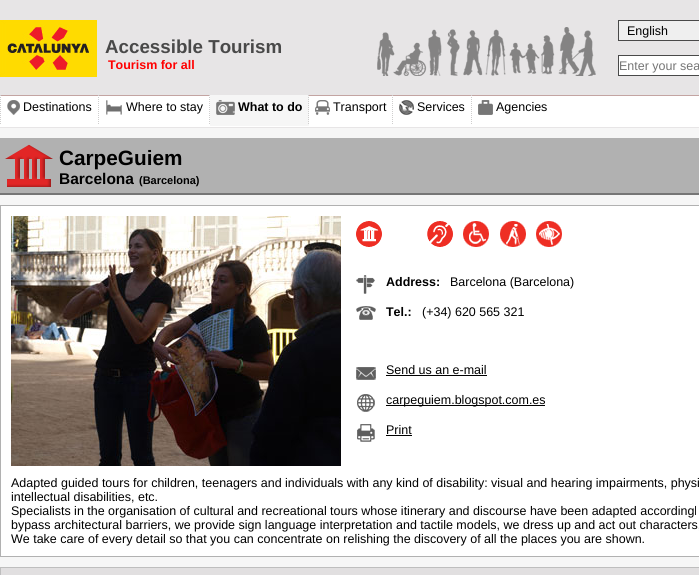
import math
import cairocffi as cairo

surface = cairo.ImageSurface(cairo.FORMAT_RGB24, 699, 575)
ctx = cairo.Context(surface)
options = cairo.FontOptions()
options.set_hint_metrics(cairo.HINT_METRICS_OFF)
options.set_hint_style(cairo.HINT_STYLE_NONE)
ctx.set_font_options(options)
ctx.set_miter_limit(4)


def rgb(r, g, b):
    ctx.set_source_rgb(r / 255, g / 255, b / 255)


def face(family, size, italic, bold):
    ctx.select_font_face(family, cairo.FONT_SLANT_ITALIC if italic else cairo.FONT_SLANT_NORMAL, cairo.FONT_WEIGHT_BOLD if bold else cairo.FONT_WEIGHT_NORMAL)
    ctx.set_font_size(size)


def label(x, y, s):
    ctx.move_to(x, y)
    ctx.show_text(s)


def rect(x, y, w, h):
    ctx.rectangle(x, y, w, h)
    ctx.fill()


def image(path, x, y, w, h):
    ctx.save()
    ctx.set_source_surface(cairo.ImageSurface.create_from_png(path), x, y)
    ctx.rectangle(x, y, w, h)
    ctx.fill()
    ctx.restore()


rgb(246, 246, 246)
ctx.paint()
image('image0.png', 0, 0, 699, 128)
image('image1.png', 0, 20, 97, 57)
face('Liberation Sans', 18.75, 0, 1)
rgb(73, 73, 73)
label(105, 53, 'Accessible Tourism')
face('Liberation Sans', 12.48, 0, 1)
rgb(255, 0, 0)
label(108, 69, 'Tourism for all')
image('image2.png', 377, 27, 219, 49)
rgb(239, 239, 239)
ctx.rectangle(618.5, 20.5, 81, 20)
ctx.fill_preserve()
rgb(73, 73, 73)
ctx.set_line_width(1)
ctx.stroke()
face('Liberation Sans', 12.48, 0, 0)
rgb(0, 0, 0)
label(627, 35, 'English')
rgb(255, 255, 255)
ctx.rectangle(618.5, 55.5, 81, 20)
ctx.fill_preserve()
rgb(73, 73, 73)
ctx.stroke()
rgb(117, 117, 117)
label(619, 70, 'Enter your sea')
ctx.new_path()
ctx.move_to(0.5, 95)
ctx.line_to(0.5, 125)
rgb(207, 206, 206)
ctx.set_dash([1, 1])
ctx.stroke()
ctx.new_path()
ctx.move_to(98.5, 95)
ctx.line_to(98.5, 125)
ctx.stroke()
image('image3.png', 7, 100, 13, 15)
rgb(0, 0, 0)
label(23, 111, 'Destinations')
ctx.new_path()
ctx.move_to(209.5, 95)
ctx.line_to(209.5, 125)
rgb(207, 206, 206)
ctx.stroke()
image('image4.png', 106, 100, 16, 15)
rgb(0, 0, 0)
label(126, 111, 'Where to stay')
rgb(246, 246, 246)
rect(210, 95, 99, 30)
ctx.new_path()
ctx.move_to(308.5, 95)
ctx.line_to(308.5, 126)
rgb(207, 206, 206)
ctx.stroke()
rgb(246, 246, 246)
rect(210, 125, 99, 1)
image('image5.png', 216, 100, 19, 15)
face('Liberation Sans', 12.48, 0, 1)
rgb(0, 0, 0)
label(238, 111, 'What to do')
ctx.new_path()
ctx.move_to(392.5, 95)
ctx.line_to(392.5, 125)
rgb(207, 206, 206)
ctx.stroke()
image('image6.png', 315, 100, 15, 15)
face('Liberation Sans', 12.48, 0, 0)
rgb(0, 0, 0)
label(333, 111, 'Transport')
ctx.new_path()
ctx.move_to(471.5, 95)
ctx.line_to(471.5, 125)
rgb(207, 206, 206)
ctx.stroke()
image('image7.png', 399, 100, 15, 15)
rgb(0, 0, 0)
label(417, 111, 'Services')
image('image8.png', 478, 100, 15, 15)
label(496, 111, 'Agencies')
rgb(177, 177, 177)
rect(0, 138, 699, 55)
rgb(118, 118, 118)
rect(0, 193, 699, 2)
image('image9.png', 5, 144, 48, 43)
face('Liberation Sans', 20.75, 0, 1)
rgb(0, 0, 0)
label(59, 165, 'CarpeGuiem')
face('Liberation Sans', 15.5, 0, 1)
label(59, 184, 'Barcelona')
face('Liberation Sans', 11, 0, 1)
label(139, 184, '(Barcelona)')
rgb(255, 255, 255)
ctx.rectangle(0.5, 205.5, 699, 351)
ctx.fill_preserve()
rgb(177, 177, 177)
ctx.set_dash([])
ctx.stroke()
image('image10.png', 11, 216, 330, 250)
image('image11.png', 356, 221, 26, 26)
image('image12.png', 427, 221, 26, 26)
image('image13.png', 463, 221, 26, 26)
image('image14.png', 500, 221, 26, 26)
image('image15.png', 536, 221, 26, 26)
image('image16.png', 356, 275, 19, 19)
face('Liberation Sans', 12.48, 0, 1)
rgb(0, 0, 0)
label(386, 286, 'Address:')
face('Liberation Sans', 12.48, 0, 0)
label(450, 286, 'Barcelona (Barcelona)')
image('image17.png', 356, 306, 20, 14)
face('Liberation Sans', 12.48, 0, 1)
label(386, 316, 'Tel.:')
face('Liberation Sans', 12.48, 0, 0)
label(422, 316, '(+34) 620 565 321')
image('image18.png', 356, 367, 20, 13)
label(386, 374, 'Send us an e-mail')
rect(386, 375, 101, 1)
image('image19.png', 357, 394, 18, 18)
rect(386, 405, 159, 1)
label(386, 404, 'carpeguiem.blogspot.com.es')
image('image20.png', 357, 424, 18, 18)
label(386, 434, 'Print')
rect(386, 435, 26, 1)
label(11, 487, 'Adapted guided tours for children, teenagers and individuals with any kind of disability: visual and hearing impairments, physi')
label(11, 501, 'intellectual disabilities, etc.')
label(11, 515, 'Specialists in the organisation of cultural and recreational tours whose itinerary and discourse have been adapted accordingl')
label(11, 529, 'bypass architectural barriers, we provide sign language interpretation and tactile models, we dress up and act out characters,')
label(11, 543, 'We take care of every detail so that you can concentrate on relishing the discovery of all the places you are shown.')
ctx.rectangle(0.5, 567.5, 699, 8)
rgb(190, 190, 190)
ctx.stroke()
rgb(225, 223, 224)
rect(1, 568, 698, 7)
surface.write_to_png('render.png')
